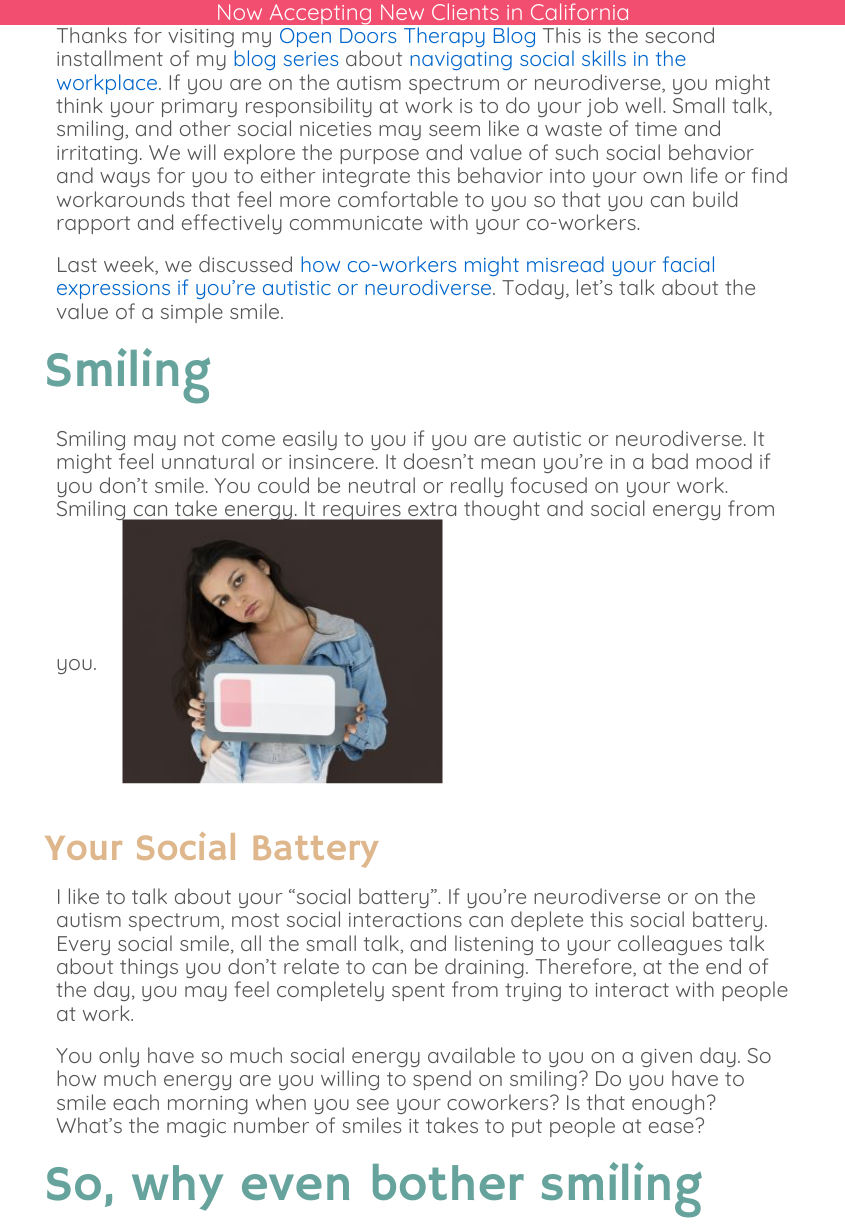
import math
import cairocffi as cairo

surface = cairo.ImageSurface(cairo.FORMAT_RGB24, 845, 1232)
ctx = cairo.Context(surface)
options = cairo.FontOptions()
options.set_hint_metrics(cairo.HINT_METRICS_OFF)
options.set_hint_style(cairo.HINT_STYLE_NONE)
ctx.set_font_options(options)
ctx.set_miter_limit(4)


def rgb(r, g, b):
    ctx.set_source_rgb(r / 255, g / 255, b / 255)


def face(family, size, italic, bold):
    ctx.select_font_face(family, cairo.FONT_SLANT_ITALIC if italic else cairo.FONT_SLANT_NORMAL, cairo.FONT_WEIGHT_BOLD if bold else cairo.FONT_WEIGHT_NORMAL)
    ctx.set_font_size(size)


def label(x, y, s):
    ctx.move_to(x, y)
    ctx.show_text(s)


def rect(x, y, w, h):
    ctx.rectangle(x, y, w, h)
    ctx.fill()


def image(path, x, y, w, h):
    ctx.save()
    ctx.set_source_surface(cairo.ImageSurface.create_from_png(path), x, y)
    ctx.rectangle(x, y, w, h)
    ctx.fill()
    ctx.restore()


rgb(255, 255, 255)
ctx.paint()
rgb(242, 78, 112)
rect(0, 0, 845, 25)
face('Quicksand Light', 22.5, 0, 0)
rgb(255, 255, 255)
label(216, 20, 'Now Accepting New Clients in California')
face('Quicksand Light', 21.25, 0, 0)
rgb(85, 85, 85)
label(56, 43, 'Thanks for visiting my')
rgb(0, 102, 204)
label(279, 43, 'Open Doors Therapy Blog')
rgb(85, 85, 85)
label(542, 43, 'This is the second')
label(56, 66, 'installment of my')
rgb(0, 102, 204)
label(233, 66, 'blog series')
rgb(85, 85, 85)
label(345, 66, 'about')
rgb(0, 102, 204)
label(409, 66, 'navigating social skills in the')
label(56, 90, 'workplace')
rgb(85, 85, 85)
label(158, 90, '. If you are on the autism spectrum or neurodiverse, you might')
label(56, 113, 'think your primary responsibility at work is to do your job well. Small talk,')
label(56, 136, 'smiling, and other social niceties may seem like a waste of time and')
label(56, 160, 'irritating. We will explore the purpose and value of such social behavior')
label(56, 183, 'and ways for you to either integrate this behavior into your own life or find')
label(56, 207, 'workarounds that feel more comfortable to you so that you can build')
label(56, 230, 'rapport and effectively communicate with your co-workers.')
label(56, 272, 'Last week, we discussed')
rgb(0, 102, 204)
label(300, 272, 'how co-workers might misread your facial')
label(56, 295, 'expressions if you’re autistic or neurodiverse')
rgb(85, 85, 85)
label(492, 295, '. Today, let’s talk about the')
label(56, 319, 'value of a simple smile.')
face('Hammersmith One', 50, 0, 0)
rgb(102, 163, 156)
label(44, 386, 'Smiling')
face('Quicksand Light', 21.25, 0, 0)
rgb(85, 85, 85)
label(56, 446, 'Smiling may not come easily to you if you are autistic or neurodiverse. It')
label(56, 469, 'might feel unnatural or insincere. It doesn’t mean you’re in a bad mood if')
label(56, 493, 'you don’t smile. You could be neutral or really focused on your work.')
label(56, 516, 'Smiling can take energy. It requires extra thought and social energy from')
label(56, 670, 'you.')
image('image0.png', 122, 519, 321, 265)
face('Hammersmith One', 37.5, 0, 0)
rgb(223, 183, 141)
label(44, 860, 'Your Social Battery')
face('Quicksand Light', 21.25, 0, 0)
rgb(85, 85, 85)
label(56, 904, 'I like to talk about your “social battery”. If you’re neurodiverse or on the')
label(56, 927, 'autism spectrum, most social interactions can deplete this social battery.')
label(56, 951, 'Every social smile, all the small talk, and listening to your colleagues talk')
label(56, 974, 'about things you don’t relate to can be draining. Therefore, at the end of')
label(56, 997, 'the day, you may feel completely spent from trying to interact with people')
label(56, 1021, 'at work.')
label(56, 1063, 'You only have so much social energy available to you on a given day. So')
label(56, 1086, 'how much energy are you willing to spend on smiling? Do you have to')
label(56, 1110, 'smile each morning when you see your coworkers? Is that enough?')
label(56, 1133, 'What’s the magic number of smiles it takes to put people at ease?')
face('Hammersmith One', 50, 0, 0)
rgb(102, 163, 156)
label(44, 1200, 'So, why even bother smiling')
surface.write_to_png('render.png')
